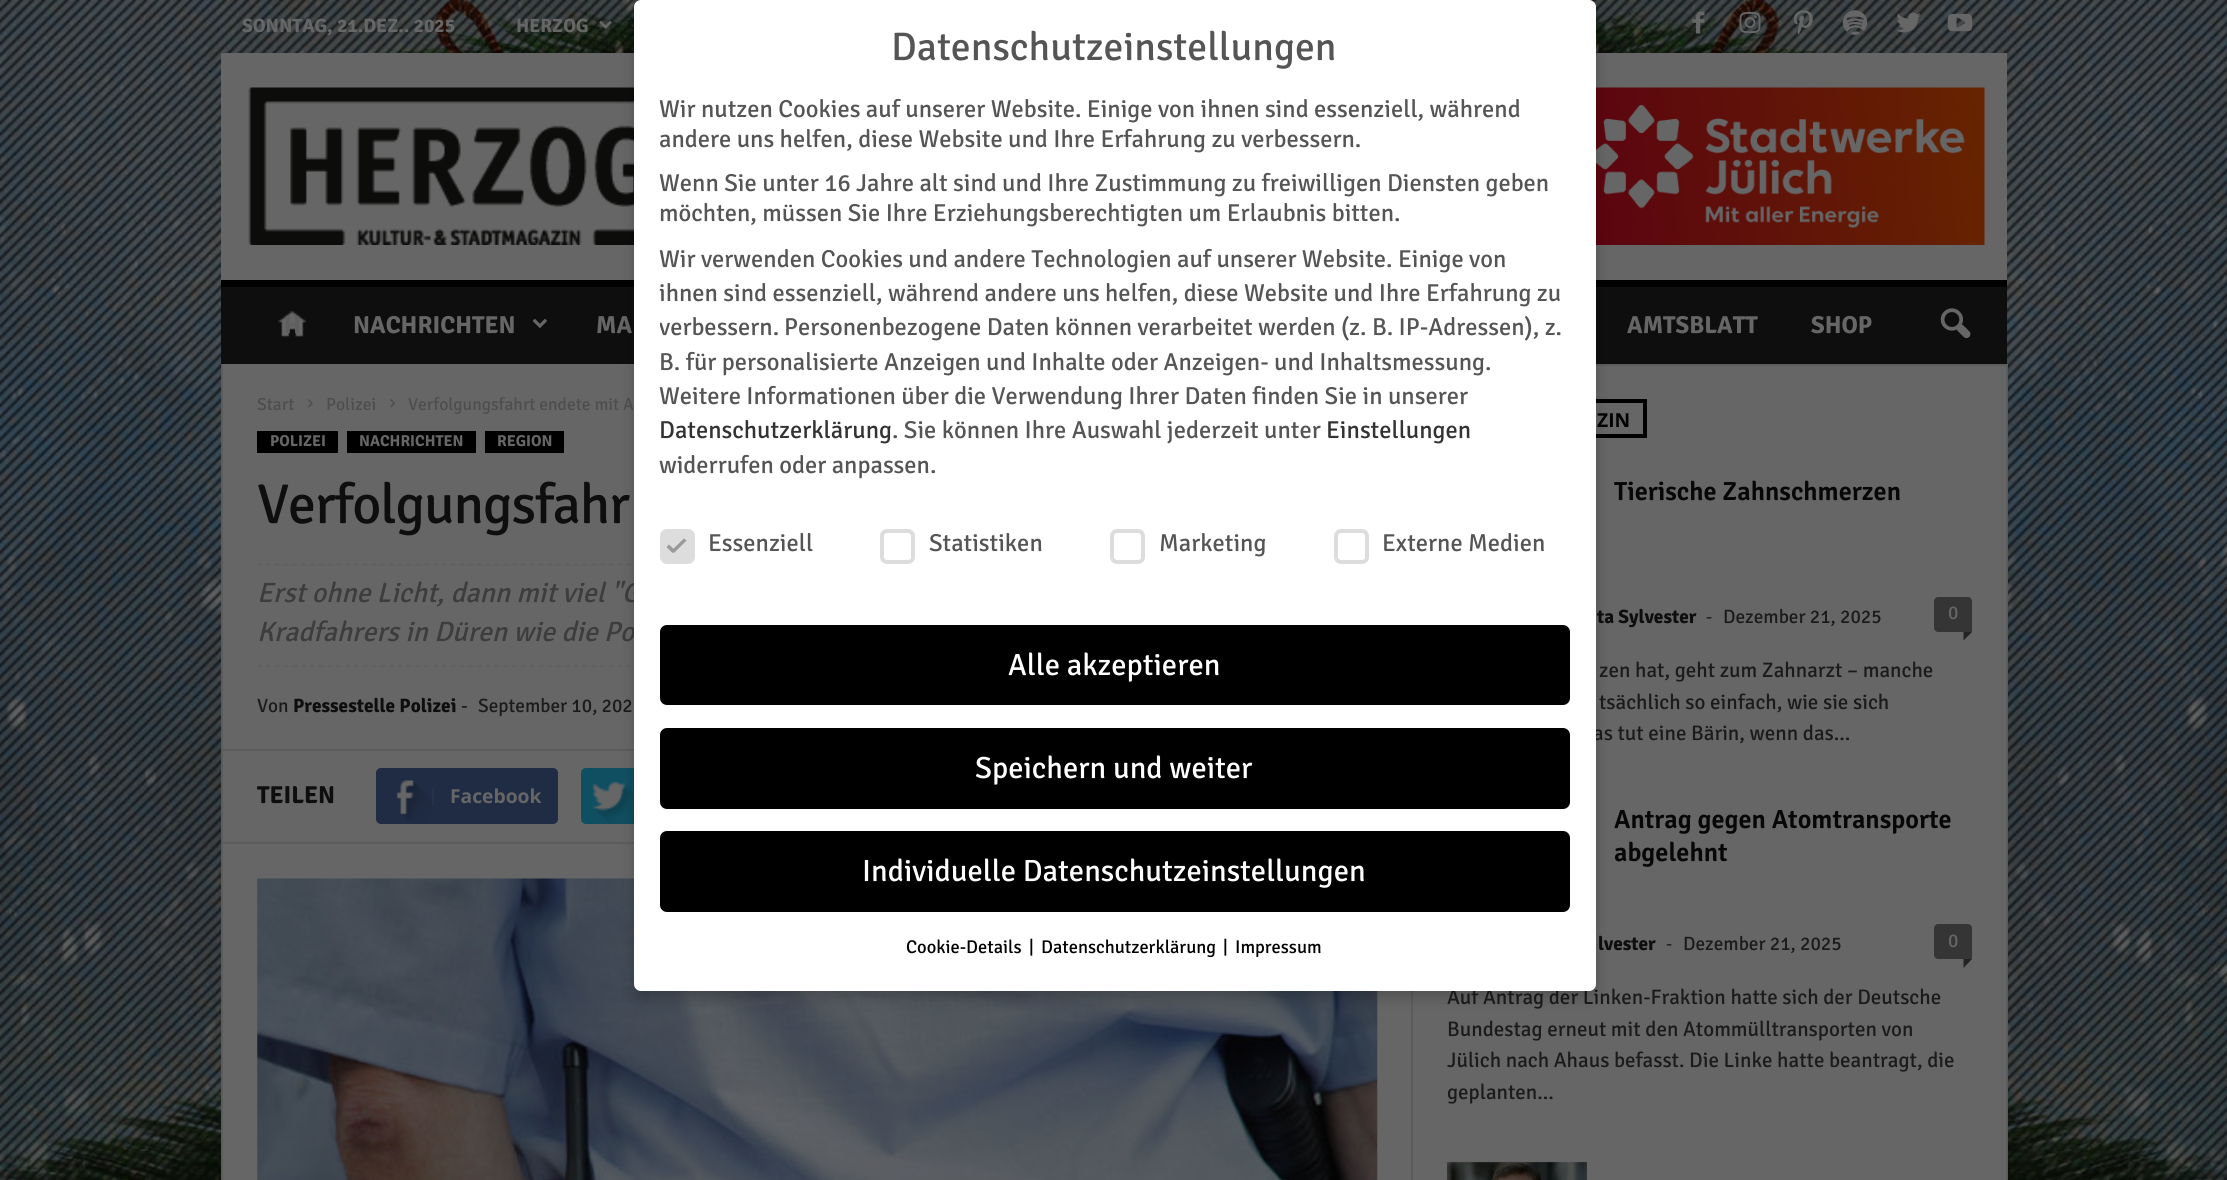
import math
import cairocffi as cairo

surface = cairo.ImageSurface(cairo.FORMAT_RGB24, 2227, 1180)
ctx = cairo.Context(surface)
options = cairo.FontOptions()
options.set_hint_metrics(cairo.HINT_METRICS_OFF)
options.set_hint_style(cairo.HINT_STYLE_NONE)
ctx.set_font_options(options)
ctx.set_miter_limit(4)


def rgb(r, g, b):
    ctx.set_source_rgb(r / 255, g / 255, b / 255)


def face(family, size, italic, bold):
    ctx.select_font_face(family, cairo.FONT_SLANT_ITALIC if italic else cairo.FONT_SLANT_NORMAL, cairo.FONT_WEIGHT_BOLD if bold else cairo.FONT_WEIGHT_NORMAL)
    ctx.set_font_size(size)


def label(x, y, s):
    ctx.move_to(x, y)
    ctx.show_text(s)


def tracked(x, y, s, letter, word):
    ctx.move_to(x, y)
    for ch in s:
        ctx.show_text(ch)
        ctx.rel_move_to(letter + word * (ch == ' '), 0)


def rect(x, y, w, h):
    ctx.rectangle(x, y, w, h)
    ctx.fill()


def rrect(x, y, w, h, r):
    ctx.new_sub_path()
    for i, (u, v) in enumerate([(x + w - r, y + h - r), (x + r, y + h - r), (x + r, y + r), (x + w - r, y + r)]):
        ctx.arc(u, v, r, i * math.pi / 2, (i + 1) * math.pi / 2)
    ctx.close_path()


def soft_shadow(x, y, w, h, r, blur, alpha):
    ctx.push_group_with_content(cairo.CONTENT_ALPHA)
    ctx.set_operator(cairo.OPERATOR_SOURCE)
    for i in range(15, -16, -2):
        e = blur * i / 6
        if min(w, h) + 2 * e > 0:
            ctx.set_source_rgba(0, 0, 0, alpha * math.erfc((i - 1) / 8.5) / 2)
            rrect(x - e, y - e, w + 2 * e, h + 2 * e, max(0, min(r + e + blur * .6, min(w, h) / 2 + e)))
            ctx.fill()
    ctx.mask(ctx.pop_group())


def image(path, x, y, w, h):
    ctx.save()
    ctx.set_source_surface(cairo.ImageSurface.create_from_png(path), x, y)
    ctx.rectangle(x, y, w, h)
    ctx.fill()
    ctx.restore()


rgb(255, 255, 255)
ctx.paint()
image('image0.png', 0, 0, 2227, 1180)
face('Signika', 19.25, 0, 1)
rgb(102, 102, 102)
label(242, 32, 'SONNTAG, 21.DEZ.. 2025')
label(516, 32, 'HERZOG')
image('image1.png', 599, 20, 13, 9)
image('image2.png', 1692, 11, 13, 23)
image('image3.png', 1739, 12, 22, 22)
image('image4.png', 1793, 10, 20, 25)
image('image5.png', 1842, 10, 26, 25)
image('image6.png', 1896, 12, 25, 21)
image('image7.png', 1947, 13, 26, 19)
rect(221, 53, 1786, 227)
image('image8.png', 248, 87, 386, 158)
image('image9.png', 1596, 87, 389, 158)
rgb(14, 14, 14)
rect(221, 287, 1786, 77)
rgb(0, 0, 0)
rect(221, 280, 1786, 7)
image('image10.png', 278, 311, 29, 26)
face('Signika', 24.5, 0, 1)
rgb(95, 95, 95)
label(284, 333, 'H')
rgb(102, 102, 102)
label(353, 333, 'NACHRICHTEN')
image('image11.png', 532, 319, 15, 9)
label(596, 333, 'MA')
label(1627, 333, 'AMTSBLATT')
label(1811, 333, 'SHOP')
image('image12.png', 1940, 308, 31, 31)
rect(223, 364, 1783, 816)
rgb(92, 92, 92)
rect(221, 364, 2, 816)
face('Signika', 17.5, 0, 0)
rgb(78, 78, 78)
label(257, 410, 'Start')
image('image13.png', 308, 399, 5, 9)
label(326, 410, 'Polizei')
image('image14.png', 390, 399, 5, 9)
label(408, 410, 'Verfolgungsfahrt endete mit A')
rgb(0, 0, 0)
rect(257, 431, 81, 22)
face('Signika', 15.75, 0, 1)
rgb(102, 102, 102)
label(270, 446, 'POLIZEI')
rgb(0, 0, 0)
rect(347, 431, 129, 22)
rgb(102, 102, 102)
label(359, 446, 'NACHRICHTEN')
rgb(0, 0, 0)
rect(485, 431, 79, 22)
rgb(102, 102, 102)
label(497, 446, 'REGION')
face('Signika', 56, 0, 0)
rgb(14, 14, 14)
tracked(257, 523, 'Verfolgungsfahr', -1.1, 0)
ctx.new_path()
ctx.move_to(257, 564.5)
ctx.line_to(1377, 564.5)
rgb(96, 96, 96)
ctx.set_line_width(1.8)
ctx.set_dash([5.25, 3.54])
ctx.stroke()
ctx.new_path()
ctx.move_to(257, 666)
ctx.line_to(1377, 666)
ctx.stroke()
face('Signika', 28, 1, 0)
rgb(61, 61, 61)
label(257, 602, 'Erst ohne Licht, dann mit viel "G')
label(257, 641, 'Kradfahrers in Düren wie die Po')
face('Signika', 19.25, 0, 0)
rgb(27, 27, 27)
label(257, 712, 'Von')
face('Signika', 19.25, 0, 1)
rgb(14, 14, 14)
label(293, 712, 'Pressestelle Polizei')
face('Signika', 19.25, 0, 0)
rgb(27, 27, 27)
label(461, 712, '-')
label(478, 712, 'September 10, 202')
rgb(92, 92, 92)
rect(222, 749, 412, 2)
face('Signika', 24.5, 0, 1)
rgb(14, 14, 14)
label(257, 803, 'TEILEN')
rgb(32, 44, 68)
rrect(376, 768, 182, 56, 5)
ctx.fill()
image('image15.png', 396, 780, 36, 44)
rgb(39, 50, 72)
rect(432, 788, 2, 17)
face('Open Sans', 19.25, 0, 1)
rgb(102, 102, 102)
label(450, 803, 'Facebook')
rgb(16, 79, 98)
rrect(581, 768, 159, 56, 5)
ctx.fill()
image('image16.png', 592, 781, 42, 43)
rgb(92, 92, 92)
rect(222, 842, 412, 2)
image('image17.png', 257, 878, 1121, 302)
rect(1411, 991, 2, 189)
rect(1596, 364, 410, 2)
ctx.rectangle(1449, 401, 196, 35)
rgb(0, 0, 0)
ctx.set_line_width(4)
ctx.set_dash([])
ctx.stroke()
label(1597, 427, 'ZIN')
face('Signika SemiBold', 26.25, 0, 0)
rgb(7, 7, 7)
label(1614, 500, 'Tierische Zahnschmerzen')
face('Signika', 19.25, 0, 1)
rgb(14, 14, 14)
label(1597, 623, 'ta Sylvester')
face('Open Sans', 19.25, 0, 0)
rgb(27, 27, 27)
label(1706, 623, '-')
face('Signika', 19.25, 0, 0)
label(1723, 623, 'Dezember 21, 2025')
rgb(53, 53, 53)
ctx.new_path()
ctx.move_to(1938, 597)
ctx.line_to(1968, 597)
ctx.curve_to(1970, 597, 1972, 599, 1972, 601)
ctx.line_to(1972, 632)
ctx.line_to(1938, 632)
ctx.curve_to(1936, 632, 1934, 630, 1934, 628)
ctx.line_to(1934, 601)
ctx.curve_to(1934, 599, 1936, 597, 1938, 597)
ctx.close_path()
ctx.fill()
rgb(102, 102, 102)
label(1948, 619, '0')
rgb(36, 36, 36)
ctx.new_path()
ctx.move_to(1963.5, 632)
ctx.line_to(1972, 632)
ctx.line_to(1963.5, 640.5)
ctx.close_path()
ctx.fill()
face('Signika', 21, 0, 0)
rgb(27, 27, 27)
label(1599, 677, 'zen hat, geht zum Zahnarzt – manche')
label(1599, 709, 'tsächlich so einfach, wie sie sich')
label(1593, 740, 'as tut eine Bärin, wenn das...')
face('Signika SemiBold', 26.25, 0, 0)
rgb(7, 7, 7)
label(1614, 828, 'Antrag gegen Atomtransporte')
label(1614, 861, 'abgelehnt')
face('Signika', 19.25, 0, 1)
rgb(14, 14, 14)
label(1598, 950, 'lvester')
face('Open Sans', 19.25, 0, 0)
rgb(27, 27, 27)
label(1666, 950, '-')
face('Signika', 19.25, 0, 0)
label(1683, 950, 'Dezember 21, 2025')
rgb(53, 53, 53)
ctx.new_path()
ctx.move_to(1938, 924)
ctx.line_to(1968, 924)
ctx.curve_to(1970, 924, 1972, 926, 1972, 928)
ctx.line_to(1972, 959)
ctx.line_to(1938, 959)
ctx.curve_to(1936, 959, 1934, 957, 1934, 955)
ctx.line_to(1934, 928)
ctx.curve_to(1934, 926, 1936, 924, 1938, 924)
ctx.close_path()
ctx.fill()
rgb(102, 102, 102)
label(1948, 947, '0')
rgb(36, 36, 36)
ctx.new_path()
ctx.move_to(1963.5, 959)
ctx.line_to(1972, 959)
ctx.line_to(1963.5, 968)
ctx.close_path()
ctx.fill()
face('Signika', 21, 0, 0)
rgb(27, 27, 27)
label(1447, 1004, 'Auf Antrag der Linken-Fraktion hatte sich der Deutsche')
label(1447, 1036, 'Bundestag erneut mit den Atommülltransporten von')
label(1447, 1067, 'Jülich nach Ahaus befasst. Die Linke hatte beantragt, die')
label(1447, 1099, 'geplanten...')
image('image18.png', 1447, 1161, 140, 19)
rgb(92, 92, 92)
rect(2006, 364, 2, 816)
rgb(0, 0, 0)
soft_shadow(634, 7, 962, 991, 7, 7, 0.2)
rgb(255, 255, 255)
rrect(634, 0, 962, 991, 7)
ctx.fill()
face('Signika', 39.75, 0, 0)
rgb(85, 85, 85)
label(891, 60, 'Datenschutzeinstellungen')
face('Signika', 24.5, 0, 0)
label(659, 117, 'Wir nutzen Cookies auf unserer Website. Einige von ihnen sind essenziell, während')
label(659, 147, 'andere uns helfen, diese Website und Ihre Erfahrung zu verbessern.')
label(659, 191, 'Wenn Sie unter 16 Jahre alt sind und Ihre Zustimmung zu freiwilligen Diensten geben')
label(659, 221, 'möchten, müssen Sie Ihre Erziehungsberechtigten um Erlaubnis bitten.')
label(659, 267, 'Wir verwenden Cookies und andere Technologien auf unserer Website. Einige von')
label(659, 301, 'ihnen sind essenziell, während andere uns helfen, diese Website und Ihre Erfahrung zu')
ctx.save()
ctx.rectangle(660, 95, 910, 388)
ctx.clip()
label(659, 335, 'verbessern.')
ctx.restore()
label(784, 335, 'Personenbezogene Daten können verarbeitet werden (z. B. IP-Adressen), z.')
label(659, 370, 'B. für personalisierte Anzeigen und Inhalte oder Anzeigen- und Inhaltsmessung.')
label(659, 404, 'Weitere Informationen über die Verwendung Ihrer Daten finden Sie in unserer')
rgb(51, 51, 51)
label(659, 438, 'Datenschutzerklärung')
rgb(85, 85, 85)
label(892, 438, '. Sie können Ihre Auswahl jederzeit unter')
rgb(51, 51, 51)
label(1326, 438, 'Einstellungen')
rgb(85, 85, 85)
label(659, 473, 'widerrufen oder anpassen.')
rgb(221, 221, 221)
rrect(662, 531, 31, 31, 5)
ctx.fill_preserve()
ctx.stroke()
rgb(153, 153, 153)
ctx.new_path()
ctx.move_to(684, 538.5)
ctx.line_to(686.5, 540.5)
ctx.line_to(674, 553)
ctx.line_to(671.5, 550.5)
ctx.close_path()
ctx.fill()
ctx.new_path()
ctx.move_to(669, 544.5)
ctx.line_to(675, 550.5)
ctx.line_to(672.5, 553)
ctx.line_to(666.5, 547)
ctx.close_path()
ctx.fill()
rgb(85, 85, 85)
label(708, 551, 'Essenziell')
rrect(882, 531, 31, 31, 5)
rgb(221, 221, 221)
ctx.stroke()
rgb(85, 85, 85)
label(929, 551, 'Statistiken')
rrect(1112, 531, 31, 31, 5)
rgb(221, 221, 221)
ctx.stroke()
rgb(85, 85, 85)
label(1159, 551, 'Marketing')
rrect(1336, 531, 31, 31, 5)
rgb(221, 221, 221)
ctx.stroke()
rgb(85, 85, 85)
label(1382, 551, 'Externe Medien')
rgb(0, 0, 0)
rrect(660, 625, 910, 80, 7)
ctx.fill()
face('Signika', 30.6, 0, 0)
rgb(255, 255, 255)
label(1008, 675, 'Alle akzeptieren')
rgb(0, 0, 0)
rrect(660, 728, 910, 81, 7)
ctx.fill()
rgb(255, 255, 255)
label(975, 778, 'Speichern und weiter')
rgb(0, 0, 0)
rrect(660, 831, 910, 81, 7)
ctx.fill()
rgb(255, 255, 255)
label(862, 881, 'Individuelle Datenschutzeinstellungen')
face('Signika', 18.4, 0, 0)
rgb(0, 0, 0)
label(906, 953, 'Cookie-Details')
label(1029, 953, '|')
label(1041, 953, 'Datenschutzerklärung')
label(1223, 953, '|')
label(1235, 953, 'Impressum')
surface.write_to_png('render.png')
